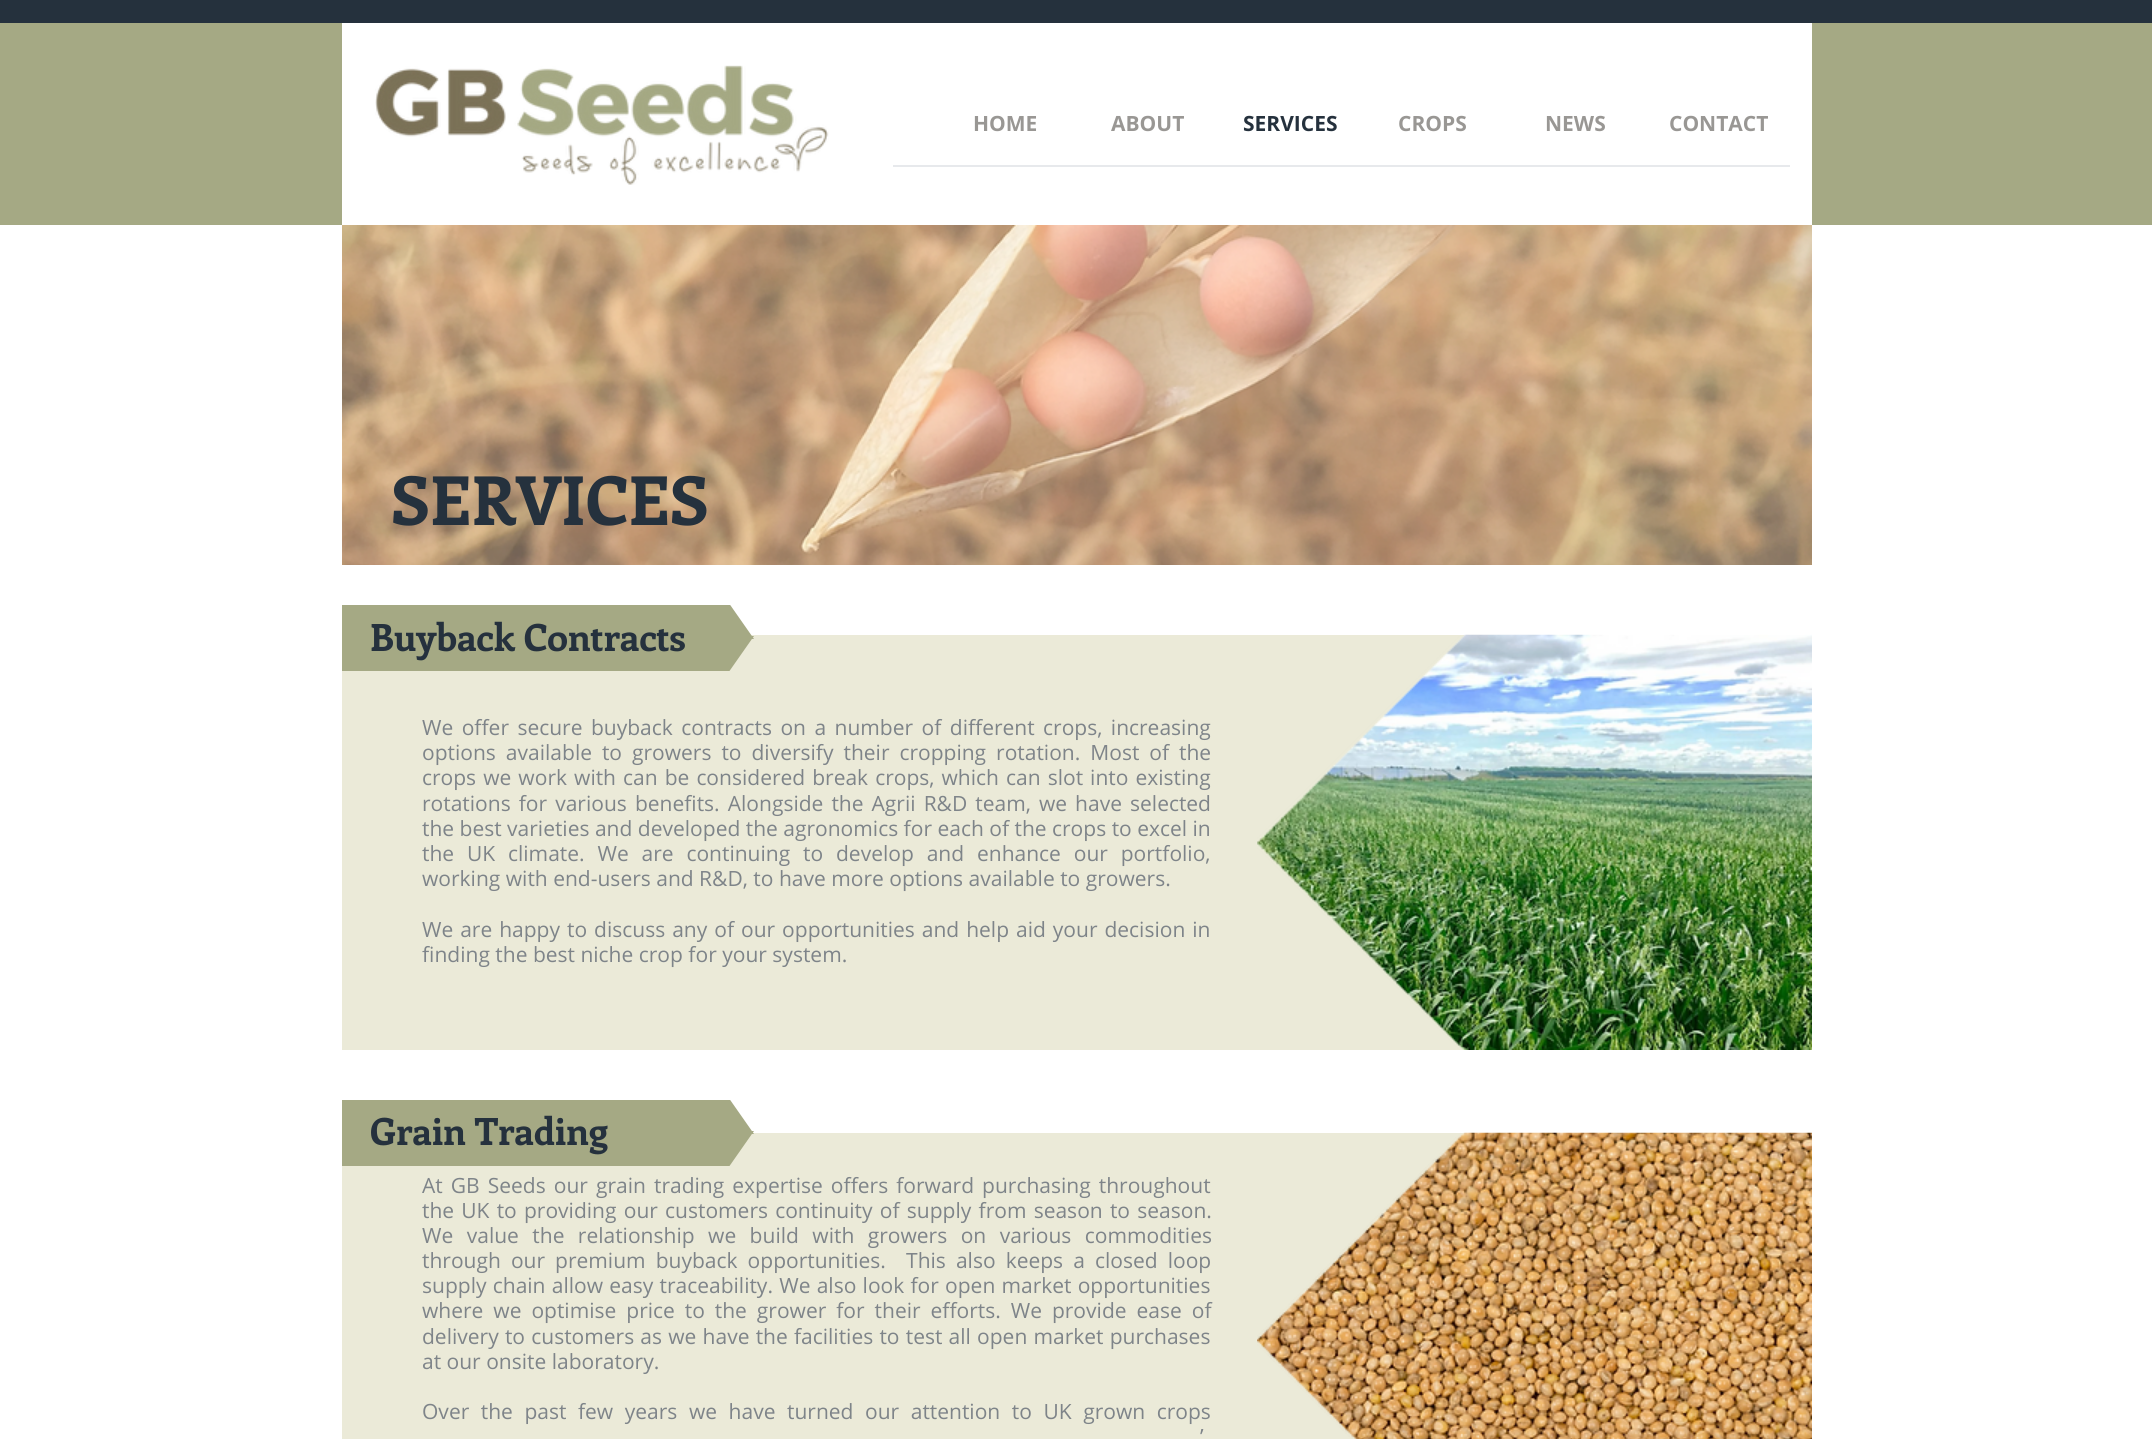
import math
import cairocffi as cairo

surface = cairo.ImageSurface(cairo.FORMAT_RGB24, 2152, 1439)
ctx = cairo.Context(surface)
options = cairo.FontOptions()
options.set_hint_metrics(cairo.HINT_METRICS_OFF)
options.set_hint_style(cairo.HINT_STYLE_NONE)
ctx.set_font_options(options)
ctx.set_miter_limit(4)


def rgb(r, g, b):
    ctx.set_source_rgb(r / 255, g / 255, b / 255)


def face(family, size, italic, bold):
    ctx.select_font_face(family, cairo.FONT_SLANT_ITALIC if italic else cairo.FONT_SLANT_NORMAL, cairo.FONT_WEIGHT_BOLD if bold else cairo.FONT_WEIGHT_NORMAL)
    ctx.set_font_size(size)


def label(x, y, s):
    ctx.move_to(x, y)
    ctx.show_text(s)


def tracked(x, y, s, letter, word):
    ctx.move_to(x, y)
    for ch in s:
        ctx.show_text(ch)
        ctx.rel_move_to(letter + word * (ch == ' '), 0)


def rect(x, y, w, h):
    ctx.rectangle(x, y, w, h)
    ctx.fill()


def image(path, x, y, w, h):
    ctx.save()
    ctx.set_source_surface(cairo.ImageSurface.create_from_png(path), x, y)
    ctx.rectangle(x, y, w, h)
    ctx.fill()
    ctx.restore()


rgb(165, 169, 132)
ctx.paint()
rgb(255, 255, 255)
rect(342, 23, 1470, 202)
rgb(37, 49, 61)
rect(0, 0, 2152, 23)
image('image0.png', 375, 65, 454, 120)
face('Open Sans', 21, 0, 1)
rgb(153, 151, 148)
label(973, 131, 'HOME')
label(1111, 131, 'ABOUT')
rgb(37, 49, 61)
label(1243, 131, 'SERVICES')
rgb(153, 151, 148)
label(1398, 131, 'CROPS')
label(1545, 131, 'NEWS')
label(1669, 131, 'CONTACT')
rgb(231, 233, 236)
rect(893, 165, 897, 2)
rgb(255, 255, 255)
rect(0, 225, 2152, 1214)
image('image1.png', 342, 225, 1470, 340)
face('Enriqueta', 67.5, 0, 1)
rgb(37, 49, 61)
label(391, 525, 'SERVICES')
rgb(235, 234, 216)
rect(342, 1133, 1127, 306)
face('Open Sans', 21, 0, 0)
rgb(126, 132, 137)
tracked(422, 1193, 'At GB Seeds our grain trading expertise offers forward purchasing throughout', 0, 2.6)
tracked(422, 1218, 'the UK to providing our customers continuity of supply from season to season.', 0, 1.75)
tracked(422, 1243, 'We value the relationship we build with growers on various commodities', 0, 8)
tracked(422, 1268, 'through our premium buyback opportunities.  This also keeps a closed loop', 0, 4.6)
tracked(422, 1293, 'supply chain allow easy traceability. We also look for open market opportunities', 0, 0.75)
tracked(422, 1318, 'where we optimise price to the grower for their efforts. We provide ease of', 0, 4.5)
tracked(422, 1344, 'delivery to customers as we have the facilities to test all open market purchases', 0, 0.75)
label(422, 1369, 'at our onsite laboratory.')
tracked(422, 1419, 'Over the past few years we have turned our attention to UK grown crops', 0, 6.1)
tracked(1200, 1444, '’', 0, 4)
image('image2.png', 1257, 1132, 555, 307)
rgb(235, 234, 216)
rect(342, 635, 1126, 415)
ctx.save()
ctx.rectangle(342, 605, 413, 66)
ctx.clip()
rgb(165, 169, 132)
ctx.new_path()
ctx.move_to(-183, 636)
ctx.line_to(754, 636)
ctx.line_to(230, 1384)
ctx.line_to(-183, 1384)
ctx.close_path()
ctx.fill()
ctx.new_path()
ctx.move_to(754, 639)
ctx.line_to(-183, 639)
ctx.line_to(-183, -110)
ctx.line_to(230, -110)
ctx.close_path()
ctx.fill()
ctx.restore()
face('Enriqueta', 37.5, 0, 1)
rgb(37, 49, 61)
label(370, 651, 'Buyback Contracts')
face('Open Sans', 21, 0, 0)
rgb(126, 132, 137)
tracked(422, 735, 'We offer secure buyback contracts on a number of different crops, increasing', 0, 3)
tracked(422, 760, 'options available to growers to diversify their cropping rotation. Most of the', 0, 4.5)
tracked(422, 785, 'crops we work with can be considered break crops, which can slot into existing', 0, 1.6)
tracked(422, 811, 'rotations for various benefits. Alongside the Agrii R&D team, we have selected', 0, 2.6)
label(422, 836, 'the best varieties and developed the agronomics for each of the crops to excel in')
tracked(422, 861, 'the UK climate. We are continuing to develop and enhance our portfolio,', 0, 7.4)
label(422, 886, 'working with end-users and R&D, to have more options available to growers.')
tracked(422, 937, 'We are happy to discuss any of our opportunities and help aid your decision in', 0, 1.5)
label(422, 962, 'finding the best niche crop for your system.')
image('image3.png', 1257, 634, 555, 416)
ctx.save()
ctx.rectangle(342, 1100, 413, 66)
ctx.clip()
rgb(165, 169, 132)
ctx.new_path()
ctx.move_to(-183, 1131)
ctx.line_to(754, 1131)
ctx.line_to(230, 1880)
ctx.line_to(-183, 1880)
ctx.close_path()
ctx.fill()
ctx.new_path()
ctx.move_to(754, 1134)
ctx.line_to(-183, 1134)
ctx.line_to(-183, 386)
ctx.line_to(230, 386)
ctx.close_path()
ctx.fill()
ctx.restore()
face('Enriqueta', 37.5, 0, 1)
rgb(37, 49, 61)
label(370, 1145, 'Grain Trading')
surface.write_to_png('render.png')
